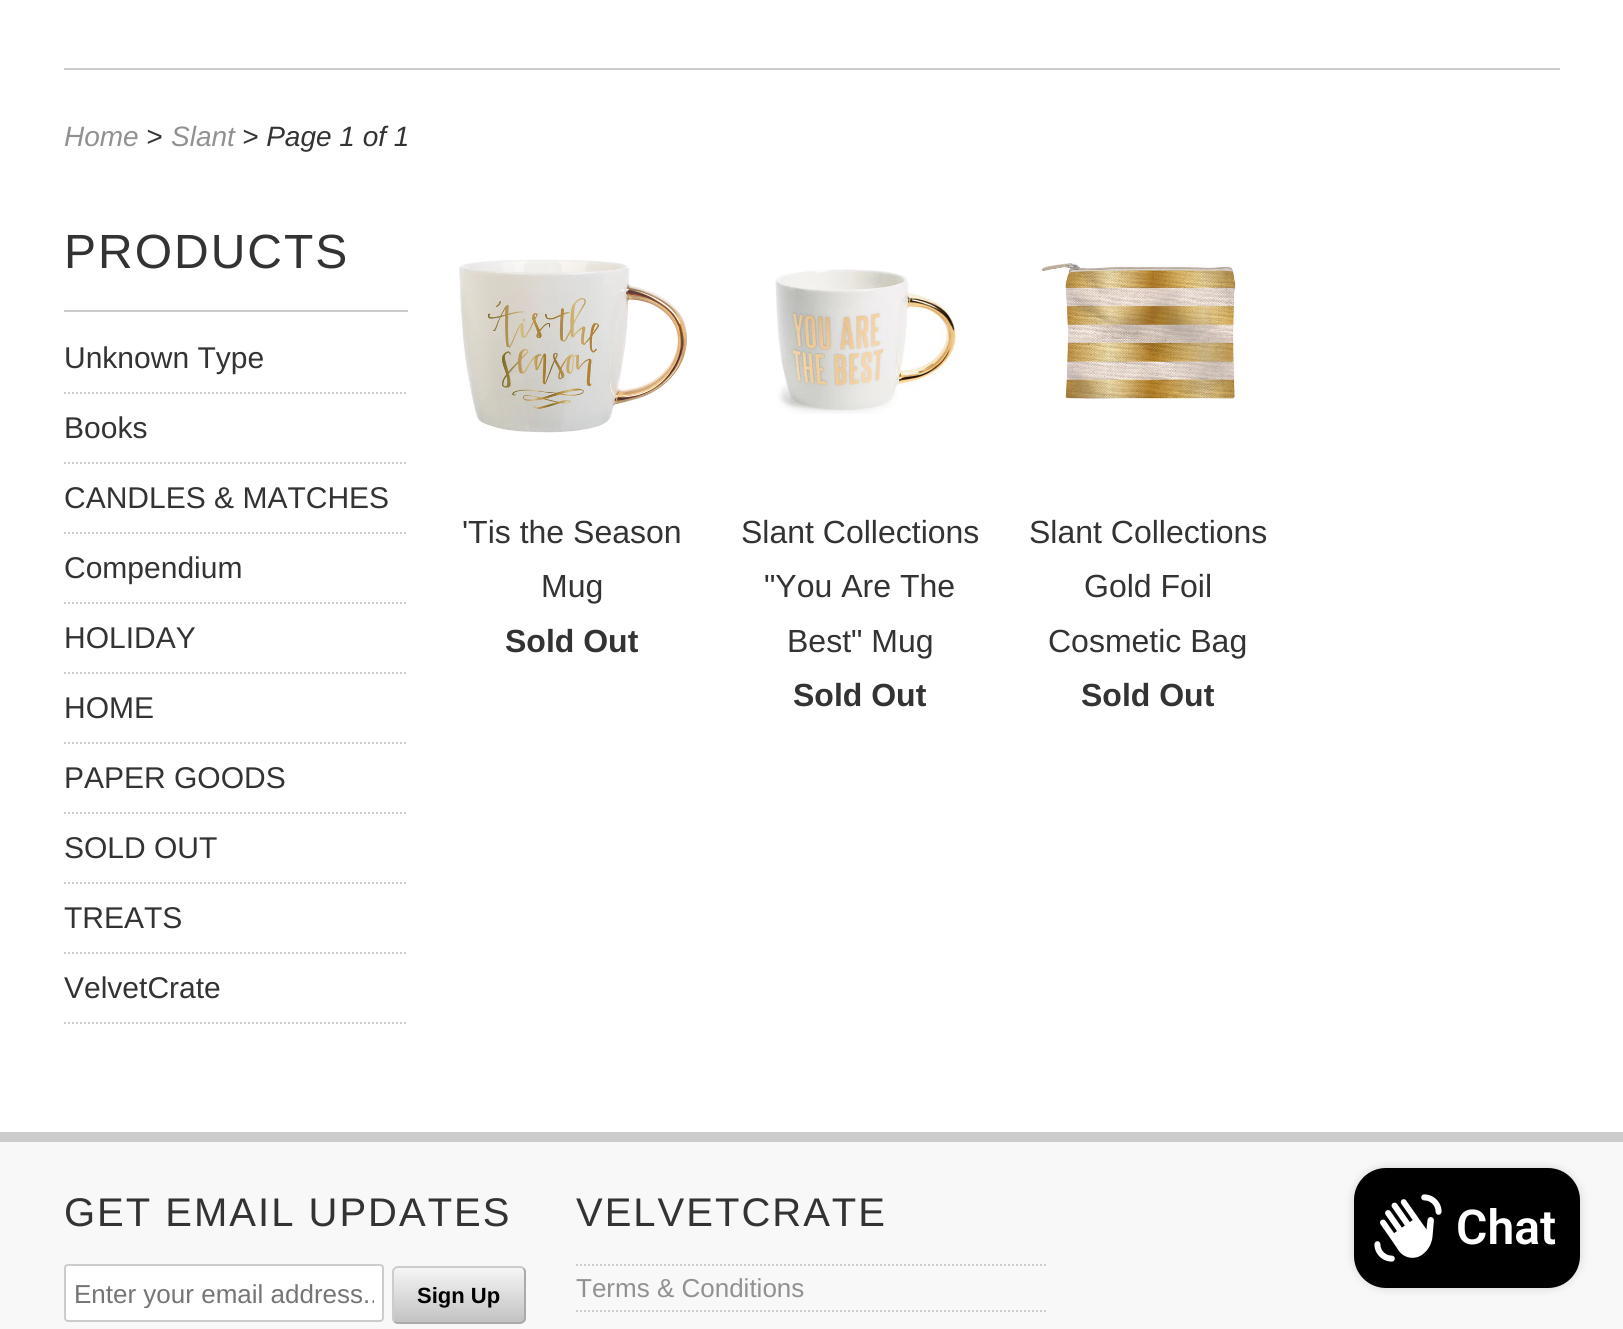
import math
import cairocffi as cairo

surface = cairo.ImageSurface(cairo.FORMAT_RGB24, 1623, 1329)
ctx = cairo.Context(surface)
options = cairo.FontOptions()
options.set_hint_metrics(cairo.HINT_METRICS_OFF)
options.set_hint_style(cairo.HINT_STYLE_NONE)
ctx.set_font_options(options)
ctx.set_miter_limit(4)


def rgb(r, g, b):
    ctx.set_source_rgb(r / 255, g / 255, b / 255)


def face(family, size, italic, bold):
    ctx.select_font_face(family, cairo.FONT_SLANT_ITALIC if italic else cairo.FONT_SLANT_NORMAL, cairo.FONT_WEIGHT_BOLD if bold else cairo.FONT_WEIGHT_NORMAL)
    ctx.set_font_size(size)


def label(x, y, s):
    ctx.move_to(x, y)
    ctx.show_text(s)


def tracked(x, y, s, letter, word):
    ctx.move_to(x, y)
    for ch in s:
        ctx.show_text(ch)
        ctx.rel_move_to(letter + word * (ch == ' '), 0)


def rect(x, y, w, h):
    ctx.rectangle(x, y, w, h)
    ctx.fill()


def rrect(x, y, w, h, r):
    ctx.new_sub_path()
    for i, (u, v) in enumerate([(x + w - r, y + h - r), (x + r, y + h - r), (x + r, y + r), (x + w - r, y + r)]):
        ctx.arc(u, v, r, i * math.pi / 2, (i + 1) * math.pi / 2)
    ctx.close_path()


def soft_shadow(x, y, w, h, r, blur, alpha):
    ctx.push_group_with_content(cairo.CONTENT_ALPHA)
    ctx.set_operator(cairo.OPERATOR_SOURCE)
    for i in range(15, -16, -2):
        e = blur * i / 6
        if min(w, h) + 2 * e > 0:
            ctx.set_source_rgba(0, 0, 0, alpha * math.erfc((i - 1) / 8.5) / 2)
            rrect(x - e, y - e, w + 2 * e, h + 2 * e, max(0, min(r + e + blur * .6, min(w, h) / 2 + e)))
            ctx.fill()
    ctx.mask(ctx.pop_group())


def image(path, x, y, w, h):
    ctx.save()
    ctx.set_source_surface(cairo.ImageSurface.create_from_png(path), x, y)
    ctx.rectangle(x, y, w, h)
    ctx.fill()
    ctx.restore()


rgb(255, 255, 255)
ctx.paint()
rgb(204, 204, 204)
rect(64, 68, 1496, 2)
face('Liberation Sans', 28, 1, 0)
rgb(145, 145, 145)
label(64, 146, 'Home')
rgb(51, 51, 51)
label(146, 146, '>')
rgb(145, 145, 145)
label(171, 146, 'Slant')
rgb(51, 51, 51)
label(242, 146, '> Page 1 of 1')
rgb(204, 204, 204)
rect(64, 310, 344, 2)
face('Liberation Sans', 48, 0, 0)
rgb(51, 51, 51)
tracked(64, 268, 'PRODUCTS', 2, 0)
ctx.new_path()
ctx.move_to(64, 393)
ctx.line_to(408, 393)
rgb(204, 204, 204)
ctx.set_dash([2, 2])
ctx.stroke()
face('Liberation Sans', 30, 0, 0)
rgb(51, 51, 51)
label(64, 368, 'Unknown Type')
ctx.new_path()
ctx.move_to(64, 463)
ctx.line_to(408, 463)
rgb(204, 204, 204)
ctx.stroke()
rgb(51, 51, 51)
label(64, 438, 'Books')
ctx.new_path()
ctx.move_to(64, 533)
ctx.line_to(408, 533)
rgb(204, 204, 204)
ctx.stroke()
rgb(51, 51, 51)
label(64, 508, 'CANDLES & MATCHES')
ctx.new_path()
ctx.move_to(64, 603)
ctx.line_to(408, 603)
rgb(204, 204, 204)
ctx.stroke()
rgb(51, 51, 51)
label(64, 578, 'Compendium')
ctx.new_path()
ctx.move_to(64, 673)
ctx.line_to(408, 673)
rgb(204, 204, 204)
ctx.stroke()
rgb(51, 51, 51)
label(64, 648, 'HOLIDAY')
ctx.new_path()
ctx.move_to(64, 743)
ctx.line_to(408, 743)
rgb(204, 204, 204)
ctx.stroke()
rgb(51, 51, 51)
label(64, 718, 'HOME')
ctx.new_path()
ctx.move_to(64, 813)
ctx.line_to(408, 813)
rgb(204, 204, 204)
ctx.stroke()
rgb(51, 51, 51)
label(64, 788, 'PAPER GOODS')
ctx.new_path()
ctx.move_to(64, 883)
ctx.line_to(408, 883)
rgb(204, 204, 204)
ctx.stroke()
rgb(51, 51, 51)
label(64, 858, 'SOLD OUT')
ctx.new_path()
ctx.move_to(64, 953)
ctx.line_to(408, 953)
rgb(204, 204, 204)
ctx.stroke()
rgb(51, 51, 51)
label(64, 928, 'TREATS')
ctx.new_path()
ctx.move_to(64, 1023)
ctx.line_to(408, 1023)
rgb(204, 204, 204)
ctx.stroke()
rgb(51, 51, 51)
label(64, 998, 'VelvetCrate')
image('image0.png', 459, 259, 229, 174)
face('Liberation Sans', 32, 0, 0)
label(462, 543, '\'Tis the Season')
label(541, 597, 'Mug')
face('Liberation Sans', 32, 0, 1)
label(505, 652, 'Sold Out')
image('image1.png', 775, 269, 184, 145)
face('Liberation Sans', 32, 0, 0)
label(741, 543, 'Slant Collections')
label(764, 597, '"You Are The')
label(787, 652, 'Best" Mug')
face('Liberation Sans', 32, 0, 1)
label(793, 706, 'Sold Out')
image('image2.png', 1040, 262, 197, 138)
face('Liberation Sans', 32, 0, 0)
label(1029, 543, 'Slant Collections')
label(1084, 597, 'Gold Foil')
label(1048, 652, 'Cosmetic Bag')
face('Liberation Sans', 32, 0, 1)
label(1081, 706, 'Sold Out')
rgb(248, 248, 248)
rect(0, 1142, 1623, 187)
rgb(204, 204, 204)
rect(0, 1132, 1623, 10)
face('Liberation Sans', 40, 0, 0)
rgb(51, 51, 51)
tracked(64, 1226, 'GET EMAIL UPDATES', 2, 0)
rgb(255, 255, 255)
rrect(65, 1265, 318, 56, 3)
ctx.fill_preserve()
rgb(204, 204, 204)
ctx.set_dash([])
ctx.stroke()
ctx.save()
ctx.rectangle(74, 1278, 300, 30)
ctx.clip()
face('Liberation Sans', 26, 0, 0)
rgb(117, 117, 117)
label(74, 1303, 'Enter your email address..')
ctx.restore()
ctx.save()
rrect(392, 1266, 134, 58, 6)
ctx.clip()
gradient = cairo.LinearGradient(459, 1268, 459, 1322)
gradient.add_color_stop_rgba(0, 0.961, 0.961, 0.961, 1)
gradient.add_color_stop_rgba(1, 0.761, 0.761, 0.761, 1)
ctx.set_source(gradient)
rect(392, 1268, 134, 54)
ctx.restore()
ctx.new_path()
ctx.move_to(523.5, 1268.5)
ctx.curve_to(524.5, 1269.5, 525, 1270.5, 525, 1272)
ctx.line_to(525, 1318)
ctx.curve_to(525, 1319.5, 524.5, 1320.5, 523.5, 1321.5)
ctx.curve_to(522.5, 1322.5, 521.5, 1323, 520, 1323)
ctx.line_to(398, 1323)
ctx.curve_to(396.5, 1323, 395.5, 1322.5, 394.5, 1321.5)
rgb(170, 170, 170)
ctx.stroke()
ctx.new_path()
ctx.move_to(394.5, 1321.5)
ctx.curve_to(393.5, 1320.5, 393, 1319.5, 393, 1318)
ctx.line_to(393, 1272)
ctx.curve_to(393, 1270.5, 393.5, 1269.5, 394.5, 1268.5)
ctx.curve_to(395.5, 1267.5, 396.5, 1267, 398, 1267)
ctx.line_to(520, 1267)
ctx.curve_to(521.5, 1267, 522.5, 1267.5, 523.5, 1268.5)
rgb(204, 204, 204)
ctx.stroke()
face('Liberation Sans', 22, 0, 1)
rgb(0, 0, 0)
label(417, 1303, 'Sign Up')
face('Liberation Sans', 40, 0, 0)
rgb(51, 51, 51)
tracked(576, 1226, 'VELVETCRATE', 2, 0)
ctx.new_path()
ctx.move_to(576, 1265)
ctx.line_to(1048, 1265)
rgb(204, 204, 204)
ctx.set_dash([2, 2])
ctx.stroke()
ctx.new_path()
ctx.move_to(576, 1311)
ctx.line_to(1048, 1311)
ctx.stroke()
face('Liberation Sans', 26, 0, 0)
rgb(145, 145, 145)
label(576, 1297, 'Terms & Conditions')
rgb(0, 0, 0)
soft_shadow(1354, 1168, 226, 120, 32, 5, 0.15)
rgb(0, 0, 0)
rrect(1354, 1168, 226, 120, 32)
ctx.fill()
image('image3.png', 1374, 1194, 68, 68)
face('Roboto SemiBold', 48, 0, 0)
rgb(255, 255, 255)
label(1456, 1244, 'Chat')
surface.write_to_png('render.png')
